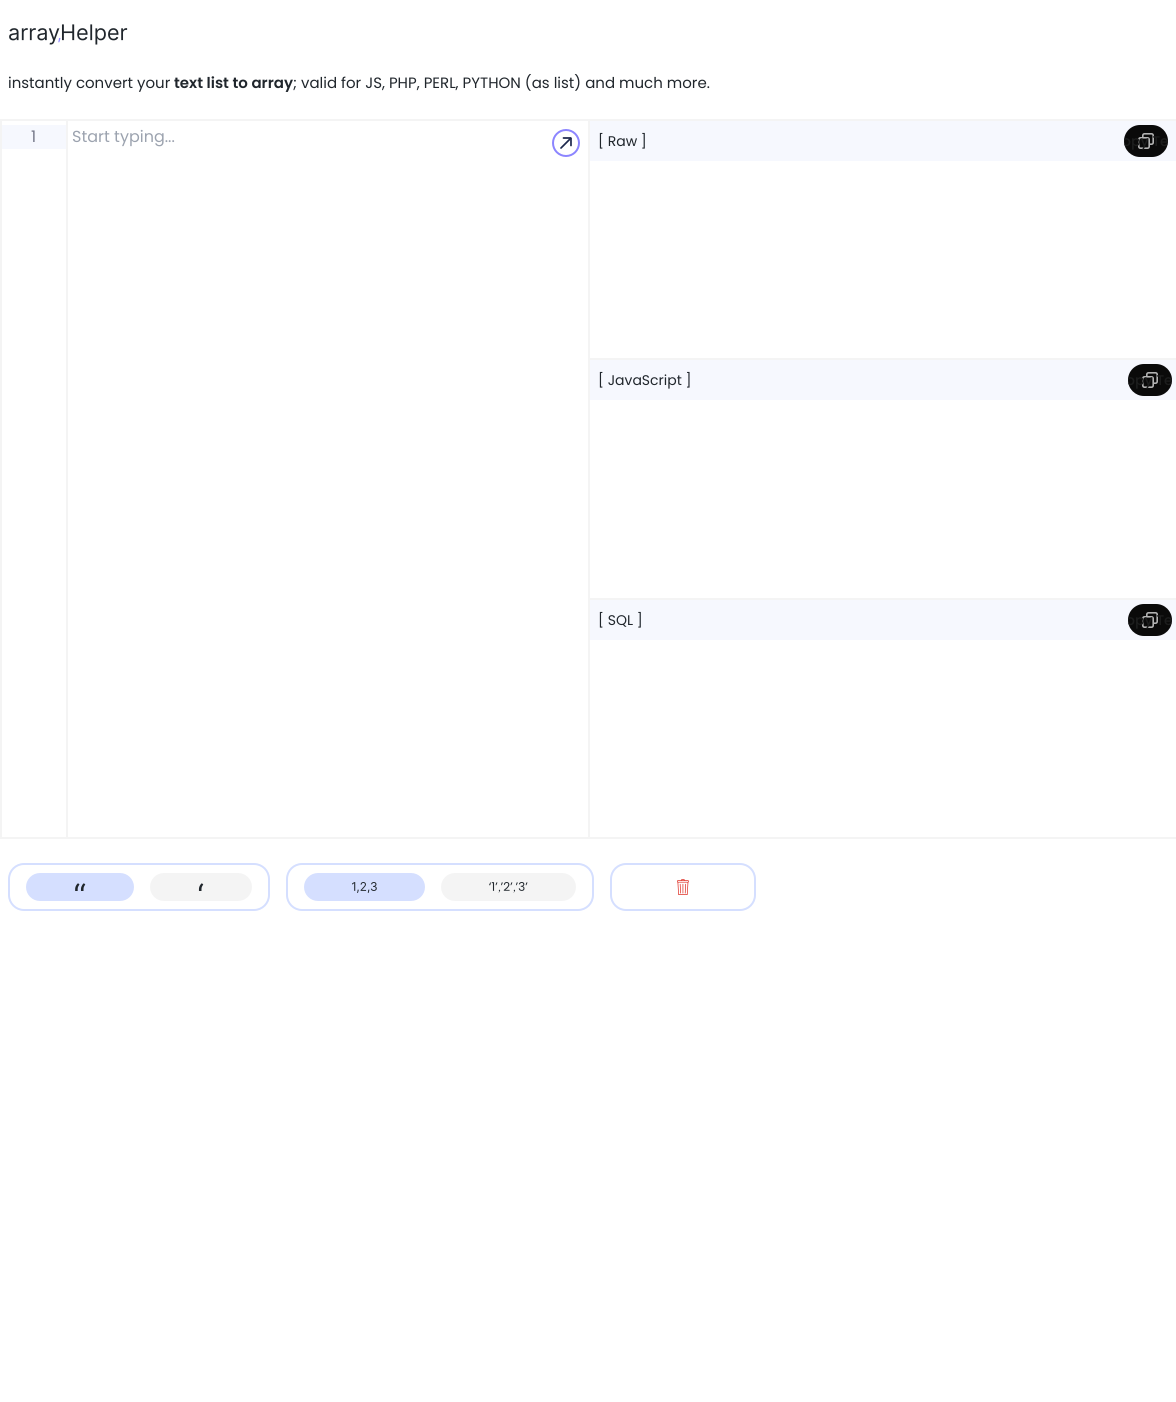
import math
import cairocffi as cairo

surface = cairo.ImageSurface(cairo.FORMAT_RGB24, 1176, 1402)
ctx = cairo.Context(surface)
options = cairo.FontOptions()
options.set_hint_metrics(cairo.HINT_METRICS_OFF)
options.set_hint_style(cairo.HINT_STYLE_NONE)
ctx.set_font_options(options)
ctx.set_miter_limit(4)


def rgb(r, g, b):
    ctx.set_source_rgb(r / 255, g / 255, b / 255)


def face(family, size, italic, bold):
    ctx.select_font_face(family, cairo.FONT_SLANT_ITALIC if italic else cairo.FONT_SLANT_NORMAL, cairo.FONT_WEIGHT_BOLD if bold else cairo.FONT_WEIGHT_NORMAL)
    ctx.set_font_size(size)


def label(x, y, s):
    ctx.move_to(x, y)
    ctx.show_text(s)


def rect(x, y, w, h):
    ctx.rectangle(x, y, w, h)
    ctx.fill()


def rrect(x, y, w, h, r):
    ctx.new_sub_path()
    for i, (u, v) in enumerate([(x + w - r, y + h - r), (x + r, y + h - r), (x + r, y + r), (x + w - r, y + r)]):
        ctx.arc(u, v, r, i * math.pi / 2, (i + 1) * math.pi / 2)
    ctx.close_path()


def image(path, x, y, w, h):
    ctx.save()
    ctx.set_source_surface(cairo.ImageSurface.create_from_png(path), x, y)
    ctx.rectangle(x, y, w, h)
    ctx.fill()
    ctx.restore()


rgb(255, 255, 255)
ctx.paint()
image('image0.png', 9, 24, 119, 21)
face('Poppins', 15, 0, 0)
rgb(32, 38, 44)
label(8, 88, 'instantly convert your')
face('Poppins SemiBold', 15, 0, 0)
label(174, 88, 'text list to array')
face('Poppins', 15, 0, 0)
label(293, 88, '; valid for JS, PHP, PERL, PYTHON (as list) and much more.')
ctx.rectangle(1, 120, 588, 718)
rgb(244, 244, 244)
ctx.stroke()
rgb(246, 248, 254)
rect(2, 125, 64, 24)
face('Poppins', 16, 0, 0)
rgb(118, 122, 138)
label(31, 142, '1')
rgb(244, 244, 244)
rect(66, 121, 2, 716)
rgb(156, 163, 175)
label(72, 142, 'Start typing...')
ctx.new_path()
ctx.arc(566, 143, 13, 0, 2 * math.pi)
rgb(140, 133, 255)
ctx.stroke()
image('image1.png', 560, 137, 12, 12)
rgb(244, 244, 244)
rect(590, 119, 586, 2)
rgb(246, 248, 254)
rect(590, 121, 586, 40)
face('Poppins', 14, 0, 0)
rgb(32, 38, 44)
label(598, 146, '[ Raw ]')
rgb(10, 10, 10)
rrect(1124, 125, 44, 32, 16)
ctx.fill()
image('image2.png', 1138, 133, 16, 16)
ctx.save()
rrect(1124, 125, 44, 32, 16)
ctx.clip()
face('Poppins Medium', 14, 0, 0)
rgb(28, 29, 29)
label(1122, 146, 'opy Te')
ctx.restore()
rgb(244, 244, 244)
rect(590, 358, 586, 2)
rgb(246, 248, 254)
rect(590, 360, 586, 40)
rgb(32, 38, 44)
label(598, 385, '[ JavaScript ]')
rgb(10, 10, 10)
rrect(1128, 364, 44, 32, 16)
ctx.fill()
image('image2.png', 1142, 372, 16, 16)
ctx.save()
rrect(1128, 364, 44, 32, 16)
ctx.clip()
face('Poppins Medium', 14, 0, 0)
rgb(28, 29, 29)
label(1126, 385, 'opy Te')
ctx.restore()
rgb(244, 244, 244)
rect(590, 598, 586, 2)
rgb(246, 248, 254)
rect(590, 600, 586, 40)
rgb(32, 38, 44)
label(598, 625, '[ SQL ]')
rgb(10, 10, 10)
rrect(1128, 604, 44, 32, 16)
ctx.fill()
image('image2.png', 1142, 612, 16, 16)
ctx.save()
rrect(1128, 604, 44, 32, 16)
ctx.clip()
face('Poppins Medium', 14, 0, 0)
rgb(28, 29, 29)
label(1126, 625, 'opy Te')
ctx.restore()
rgb(244, 244, 244)
rect(590, 837, 586, 2)
rrect(9, 864, 260, 46, 15)
rgb(213, 223, 255)
ctx.stroke()
rrect(26, 873, 108, 28, 14)
ctx.fill()
image('image3.png', 75, 883, 11, 8)
rgb(244, 244, 244)
rrect(150, 873, 102, 28, 14)
ctx.fill()
image('image4.png', 198, 883, 6, 8)
rrect(287, 864, 306, 46, 15)
rgb(213, 223, 255)
ctx.stroke()
rrect(304, 873, 121, 28, 14)
ctx.fill()
image('image5.png', 352, 882, 25, 11)
rgb(244, 244, 244)
rrect(441, 873, 135, 28, 14)
ctx.fill()
image('image6.png', 489, 882, 39, 11)
rrect(611, 864, 144, 46, 15)
rgb(213, 223, 255)
ctx.stroke()
image('image7.png', 677, 879, 12, 16)
surface.write_to_png('render.png')
